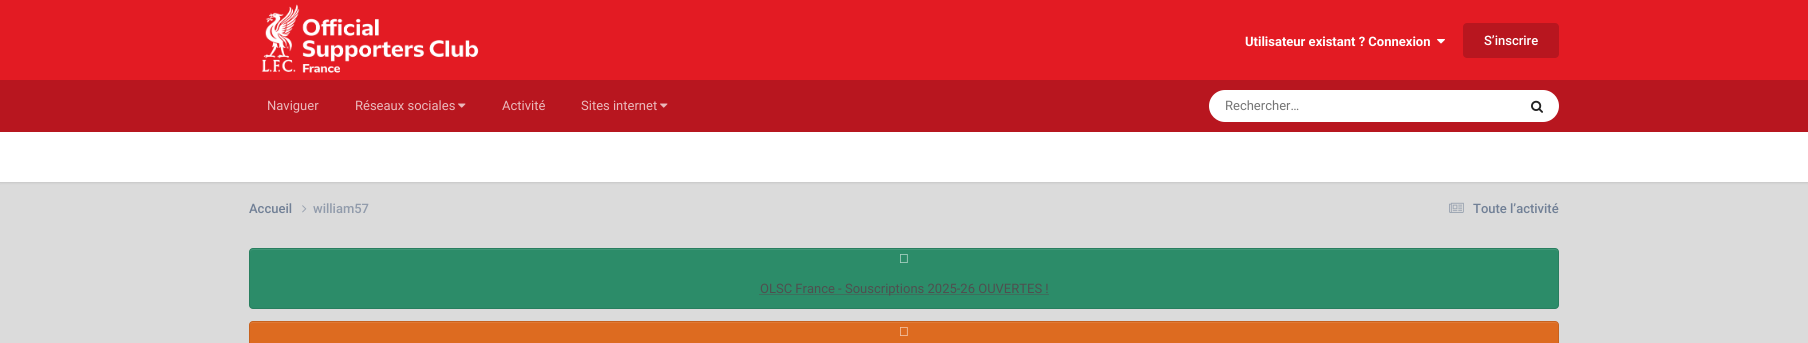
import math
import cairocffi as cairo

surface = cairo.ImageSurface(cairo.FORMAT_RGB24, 1808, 343)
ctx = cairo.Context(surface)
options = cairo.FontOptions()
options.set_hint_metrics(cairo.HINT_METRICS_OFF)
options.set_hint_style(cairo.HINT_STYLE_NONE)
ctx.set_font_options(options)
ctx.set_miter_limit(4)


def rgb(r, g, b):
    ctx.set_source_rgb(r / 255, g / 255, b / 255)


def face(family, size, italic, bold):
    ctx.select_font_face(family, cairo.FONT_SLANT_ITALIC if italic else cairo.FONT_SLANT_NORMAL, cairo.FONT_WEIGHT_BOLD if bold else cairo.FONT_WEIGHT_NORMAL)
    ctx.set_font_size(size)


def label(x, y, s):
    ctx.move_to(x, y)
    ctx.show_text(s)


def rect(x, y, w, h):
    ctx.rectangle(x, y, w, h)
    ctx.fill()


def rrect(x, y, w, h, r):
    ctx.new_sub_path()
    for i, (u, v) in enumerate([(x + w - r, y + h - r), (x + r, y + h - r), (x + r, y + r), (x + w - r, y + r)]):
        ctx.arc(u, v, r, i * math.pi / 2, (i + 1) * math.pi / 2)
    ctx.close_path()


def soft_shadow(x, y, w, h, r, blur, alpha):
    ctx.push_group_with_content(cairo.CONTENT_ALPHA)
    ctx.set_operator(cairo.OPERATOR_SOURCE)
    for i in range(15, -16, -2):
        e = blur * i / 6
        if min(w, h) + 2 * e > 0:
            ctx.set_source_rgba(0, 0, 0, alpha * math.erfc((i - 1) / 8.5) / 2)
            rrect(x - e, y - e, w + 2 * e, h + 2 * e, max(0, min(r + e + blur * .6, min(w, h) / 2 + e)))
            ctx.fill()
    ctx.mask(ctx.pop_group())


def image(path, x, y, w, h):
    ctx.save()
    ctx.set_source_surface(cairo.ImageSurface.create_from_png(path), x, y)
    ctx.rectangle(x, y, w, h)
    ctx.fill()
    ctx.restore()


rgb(219, 219, 219)
ctx.paint()
rgb(227, 27, 35)
rect(0, 0, 1808, 80)
image('image0.png', 261, 4, 218, 69)
face('Roboto', 13, 0, 1)
rgb(255, 255, 255)
label(1245, 46, 'Utilisateur existant ? Connexion')
image('image1.png', 1437, 39, 8, 5)
rgb(184, 22, 31)
rrect(1463, 23, 96, 35, 4)
ctx.fill()
face('Roboto Medium', 13, 0, 0)
rgb(255, 255, 255)
label(1484, 45, 'S’inscrire')
rgb(184, 22, 31)
rect(0, 80, 1808, 52)
face('Roboto', 13, 0, 0)
rgb(234, 185, 188)
label(267, 110, 'Naviguer')
label(355, 110, 'Réseaux sociales')
image('image2.png', 458, 103, 8, 5)
label(502, 110, 'Activité')
label(581, 110, 'Sites internet')
image('image2.png', 660, 103, 8, 5)
rgb(255, 255, 255)
rrect(1209, 90, 350, 32, 16)
ctx.fill()
rgb(117, 117, 117)
label(1225, 110, 'Rechercher…')
image('image3.png', 1531, 100, 12, 13)
rgb(0, 0, 0)
soft_shadow(0, 133, 1808, 50, 0, 1, 0.1)
rgb(255, 255, 255)
rect(0, 132, 1808, 50)
face('Roboto Medium', 13, 0, 0)
rgb(113, 128, 150)
label(249, 213, 'Accueil')
image('image4.png', 302, 205, 5, 8)
rgb(145, 155, 171)
label(313, 213, 'william57')
image('image5.png', 1449, 202, 15, 11)
rgb(113, 128, 150)
label(1473, 213, 'Toute l’activité')
rgb(44, 140, 105)
rrect(249, 248, 1310, 61, 4)
ctx.fill()
rgb(65, 152, 120)
ctx.new_path()
ctx.move_to(253, 250)
ctx.line_to(1555, 250)
ctx.curve_to(1557, 250, 1558, 251, 1558, 253)
ctx.line_to(1558, 252)
ctx.curve_to(1558, 250, 1557, 249, 1555, 249)
ctx.line_to(253, 249)
ctx.curve_to(251, 249, 250, 250, 250, 252)
ctx.line_to(250, 253)
ctx.curve_to(250, 251, 251, 250, 253, 250)
ctx.close_path()
ctx.fill()
rrect(249.5, 248.5, 1309, 60, 3.5)
ctx.set_source_rgba(0, 0, 0, 0.1)
ctx.set_line_width(1)
ctx.stroke()
image('image6.png', 900, 254, 8, 9)
ctx.new_path()
ctx.move_to(759.5, 294.5)
ctx.line_to(1048.5, 294.5)
rgb(79, 79, 79)
ctx.set_dash([1, 1])
ctx.stroke()
face('Roboto', 13, 0, 0)
label(760, 293, 'OLSC France - Souscriptions 2025-26 OUVERTES !')
rgb(221, 107, 32)
rrect(249, 321, 1310, 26, 4)
ctx.fill()
rgb(224, 122, 54)
ctx.new_path()
ctx.move_to(253, 323)
ctx.line_to(1555, 323)
ctx.curve_to(1557, 323, 1558, 324, 1558, 326)
ctx.line_to(1558, 325)
ctx.curve_to(1558, 323, 1557, 322, 1555, 322)
ctx.line_to(253, 322)
ctx.curve_to(251, 322, 250, 323, 250, 325)
ctx.line_to(250, 326)
ctx.curve_to(250, 324, 251, 323, 253, 323)
ctx.close_path()
ctx.fill()
rrect(249.5, 321.5, 1309, 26, 3.5)
ctx.set_source_rgba(0, 0, 0, 0.1)
ctx.set_dash([])
ctx.stroke()
image('image7.png', 900, 327, 8, 9)
surface.write_to_png('render.png')
